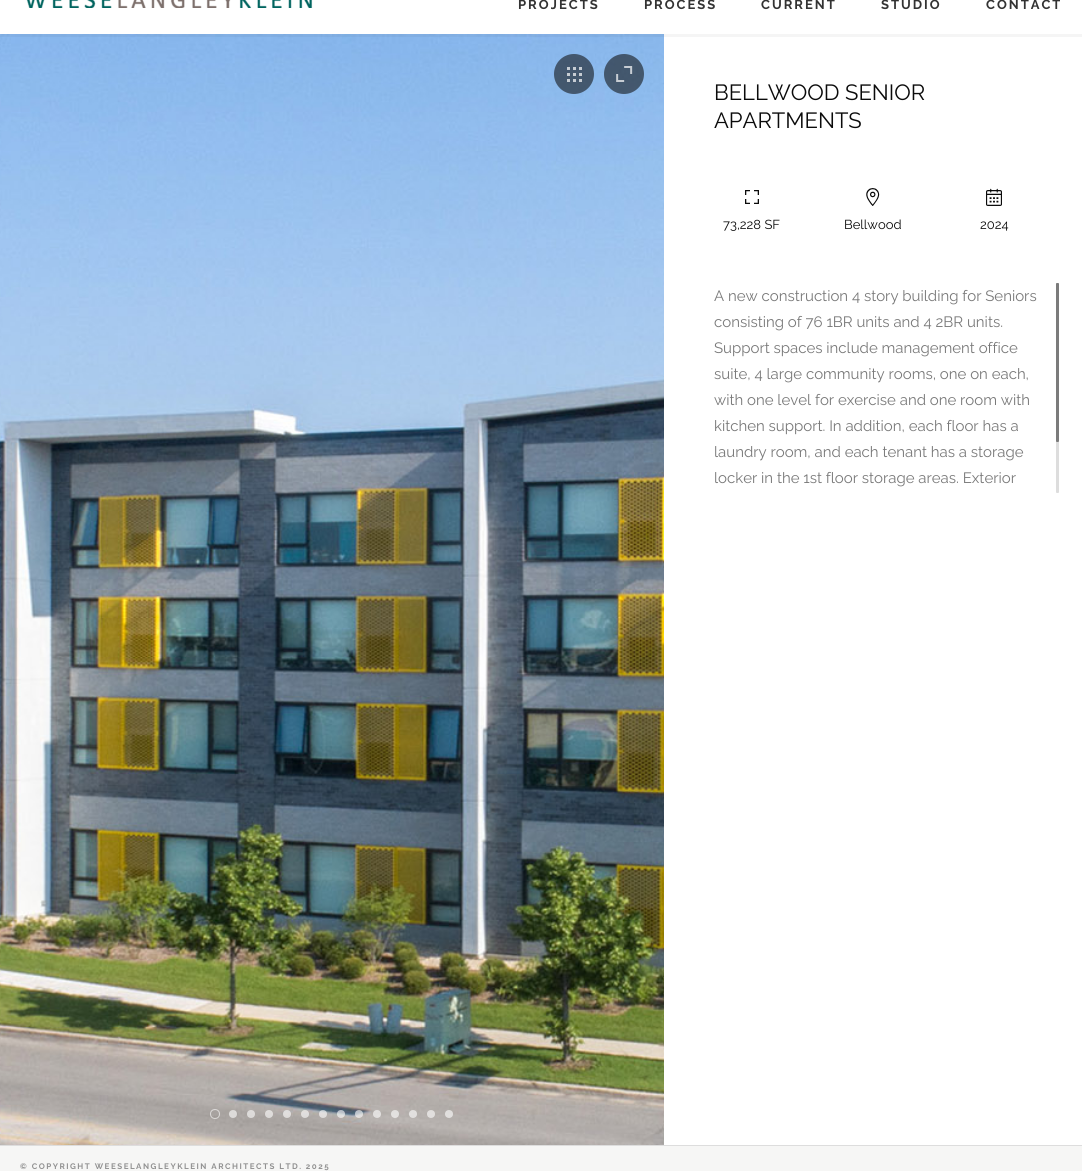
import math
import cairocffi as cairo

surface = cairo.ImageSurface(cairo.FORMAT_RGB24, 1082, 1171)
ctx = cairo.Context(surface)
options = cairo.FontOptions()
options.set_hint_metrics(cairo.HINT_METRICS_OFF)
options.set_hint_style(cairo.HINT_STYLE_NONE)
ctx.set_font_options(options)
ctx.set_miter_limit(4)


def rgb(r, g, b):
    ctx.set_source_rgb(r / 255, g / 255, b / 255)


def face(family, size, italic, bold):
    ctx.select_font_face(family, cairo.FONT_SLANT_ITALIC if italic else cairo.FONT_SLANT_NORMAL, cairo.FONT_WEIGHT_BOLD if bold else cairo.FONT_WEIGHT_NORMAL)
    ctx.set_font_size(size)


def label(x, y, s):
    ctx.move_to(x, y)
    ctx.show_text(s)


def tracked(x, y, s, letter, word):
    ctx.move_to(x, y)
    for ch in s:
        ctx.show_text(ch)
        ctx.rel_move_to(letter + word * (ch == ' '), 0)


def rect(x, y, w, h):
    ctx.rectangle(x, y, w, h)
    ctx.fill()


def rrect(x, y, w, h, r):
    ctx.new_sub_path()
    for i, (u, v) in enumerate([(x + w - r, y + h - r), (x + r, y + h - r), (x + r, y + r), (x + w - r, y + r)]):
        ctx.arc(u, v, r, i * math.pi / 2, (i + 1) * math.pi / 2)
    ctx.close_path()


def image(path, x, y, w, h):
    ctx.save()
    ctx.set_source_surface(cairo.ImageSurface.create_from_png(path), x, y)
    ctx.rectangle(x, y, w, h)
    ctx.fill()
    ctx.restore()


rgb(255, 255, 255)
ctx.paint()
image('image0.png', 26, 0, 287, 8)
face('Raleway', 13, 0, 1)
rgb(51, 51, 51)
tracked(518, 9, 'PROJECTS', 2, 0)
tracked(644, 9, 'PROCESS', 2, 0)
tracked(761, 9, 'CURRENT', 2, 0)
tracked(881, 9, 'STUDIO', 2, 0)
tracked(986, 9, 'CONTACT', 2, 0)
image('image1.png', 0, 34, 664, 1111)
ctx.set_source_rgba(0, 0, 0, 0.04)
rect(0, 34, 1082, 3)
ctx.arc(215, 1114, 4.5, 0, 2 * math.pi)
ctx.set_source_rgba(1, 1, 1, 0.6)
ctx.set_line_width(1)
ctx.stroke()
ctx.arc(233, 1114, 4, 0, 2 * math.pi)
ctx.fill()
ctx.arc(251, 1114, 4, 0, 2 * math.pi)
ctx.fill()
ctx.arc(269, 1114, 4, 0, 2 * math.pi)
ctx.fill()
ctx.arc(287, 1114, 4, 0, 2 * math.pi)
ctx.fill()
ctx.arc(305, 1114, 4, 0, 2 * math.pi)
ctx.fill()
ctx.arc(323, 1114, 4, 0, 2 * math.pi)
ctx.fill()
ctx.arc(341, 1114, 4, 0, 2 * math.pi)
ctx.fill()
ctx.arc(359, 1114, 4, 0, 2 * math.pi)
ctx.fill()
ctx.arc(377, 1114, 4, 0, 2 * math.pi)
ctx.fill()
ctx.arc(395, 1114, 4, 0, 2 * math.pi)
ctx.fill()
ctx.arc(413, 1114, 4, 0, 2 * math.pi)
ctx.fill()
ctx.arc(431, 1114, 4, 0, 2 * math.pi)
ctx.fill()
ctx.arc(449, 1114, 4, 0, 2 * math.pi)
ctx.fill()
ctx.set_source_rgba(0.043, 0.043, 0.043, 0.56)
ctx.arc(574, 74, 20, 0, 2 * math.pi)
ctx.fill()
image('image2.png', 567, 67, 15, 15)
ctx.arc(624, 74, 20, 0, 2 * math.pi)
ctx.fill()
image('image3.png', 616, 66, 17, 16)
face('Raleway', 22, 0, 0)
rgb(11, 11, 11)
label(714, 100, 'BELLWOOD SENIOR')
label(714, 128, 'APARTMENTS')
image('image4.png', 745, 190, 14, 14)
face('Raleway', 13, 0, 0)
label(723, 229, '73,228 SF')
image('image5.png', 866, 188, 14, 18)
label(844, 229, 'Bellwood')
image('image6.png', 986, 188, 16, 18)
label(980, 229, '2024')
face('Raleway', 15, 0, 0)
rgb(121, 121, 121)
label(714, 301, 'A new construction 4 story building for Seniors')
label(714, 327, 'consisting of 76 1BR units and 4 2BR units.')
label(714, 353, 'Support spaces include management office')
label(714, 379, 'suite, 4 large community rooms, one on each,')
label(714, 405, 'with one level for exercise and one room with')
label(714, 431, 'kitchen support. In addition, each floor has a')
label(714, 457, 'laundry room, and each tenant has a storage')
label(714, 483, 'locker in the 1st floor storage areas. Exterior')
rgb(221, 221, 221)
rrect(1056, 283, 3, 210, 1)
ctx.fill()
rgb(123, 123, 123)
rrect(1056, 283, 3, 159, 1)
ctx.fill()
rgb(246, 246, 245)
rect(0, 1146, 1082, 25)
rgb(221, 221, 221)
rect(0, 1145, 1082, 1)
face('Raleway', 8, 0, 1)
rgb(146, 146, 146)
tracked(20, 1169, '© COPYRIGHT WEESELANGLEYKLEIN ARCHITECTS LTD. 2025', 1.5, 0)
surface.write_to_png('render.png')
